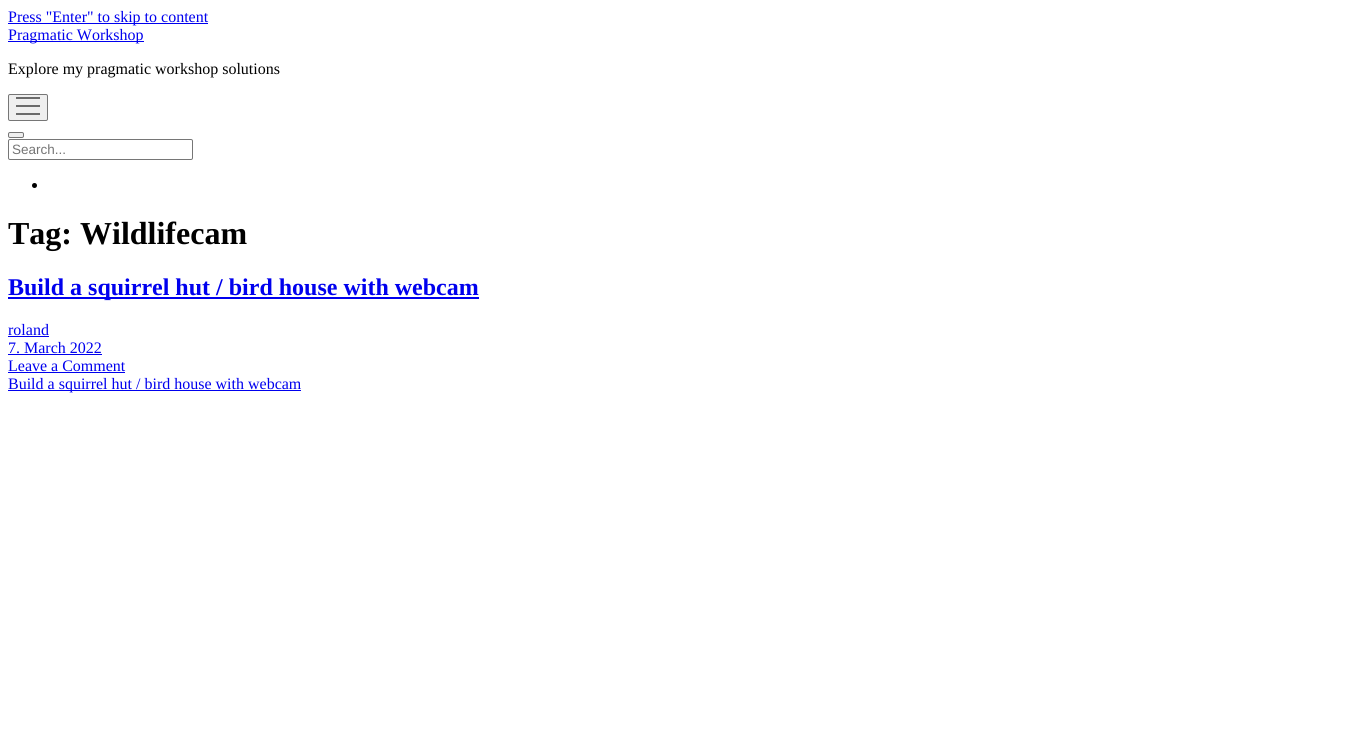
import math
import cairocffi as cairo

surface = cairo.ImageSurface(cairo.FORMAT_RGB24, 1365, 741)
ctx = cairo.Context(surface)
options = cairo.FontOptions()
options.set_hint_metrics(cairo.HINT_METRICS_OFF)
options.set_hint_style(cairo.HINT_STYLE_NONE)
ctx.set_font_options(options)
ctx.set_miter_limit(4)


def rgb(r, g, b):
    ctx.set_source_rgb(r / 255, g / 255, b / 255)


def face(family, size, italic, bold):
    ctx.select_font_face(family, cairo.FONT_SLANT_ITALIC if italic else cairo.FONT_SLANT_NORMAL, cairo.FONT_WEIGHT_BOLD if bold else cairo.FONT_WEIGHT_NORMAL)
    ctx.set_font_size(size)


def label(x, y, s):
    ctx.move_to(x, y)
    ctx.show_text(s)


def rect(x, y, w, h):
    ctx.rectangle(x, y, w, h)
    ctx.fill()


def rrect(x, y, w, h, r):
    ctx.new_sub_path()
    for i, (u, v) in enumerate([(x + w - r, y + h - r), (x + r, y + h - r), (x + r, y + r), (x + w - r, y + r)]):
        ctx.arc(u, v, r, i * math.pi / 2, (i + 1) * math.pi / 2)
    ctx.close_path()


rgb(255, 255, 255)
ctx.paint()
rgb(0, 0, 238)
rect(8, 23, 200, 1)
face('Liberation Serif', 16, 0, 0)
label(8, 22, 'Press "Enter" to skip to content')
rect(8, 41, 136, 1)
label(8, 40, 'Pragmatic Workshop')
rgb(0, 0, 0)
label(8, 74, 'Explore my pragmatic workshop solutions')
rgb(239, 239, 239)
rrect(8.5, 94.5, 39, 26, 1.5)
ctx.fill_preserve()
rgb(118, 118, 118)
ctx.set_line_width(1)
ctx.stroke()
rgb(107, 107, 107)
rect(16, 97, 24, 2)
rect(16, 105, 24, 2)
rect(16, 113, 24, 2)
rgb(239, 239, 239)
rrect(8.5, 132.5, 15, 5, 1.5)
ctx.fill_preserve()
rgb(118, 118, 118)
ctx.stroke()
rrect(8.5, 139.5, 184, 20, 1.5)
ctx.stroke()
face('Liberation Sans', 13.5, 0, 0)
rgb(117, 117, 117)
label(12, 154, 'Search...')
rgb(0, 0, 0)
ctx.new_path()
ctx.arc(34.5, 185.5, 2.5, 0, 2 * math.pi)
ctx.fill()
face('Liberation Serif', 32, 0, 1)
label(8, 244, 'Tag: Wildlifecam')
rgb(0, 0, 238)
rect(8, 297, 471, 2)
face('Liberation Serif', 24, 0, 1)
label(8, 295, 'Build a squirrel hut / bird house with webcam')
face('Liberation Serif', 16, 0, 0)
label(8, 335, 'roland')
rect(8, 336, 41, 1)
label(8, 353, '7. March 2022')
rect(8, 354, 94, 1)
label(8, 371, 'Leave a Comment')
rect(8, 372, 117, 1)
rect(8, 390, 293, 1)
label(8, 389, 'Build a squirrel hut / bird house with webcam')
surface.write_to_png('render.png')
